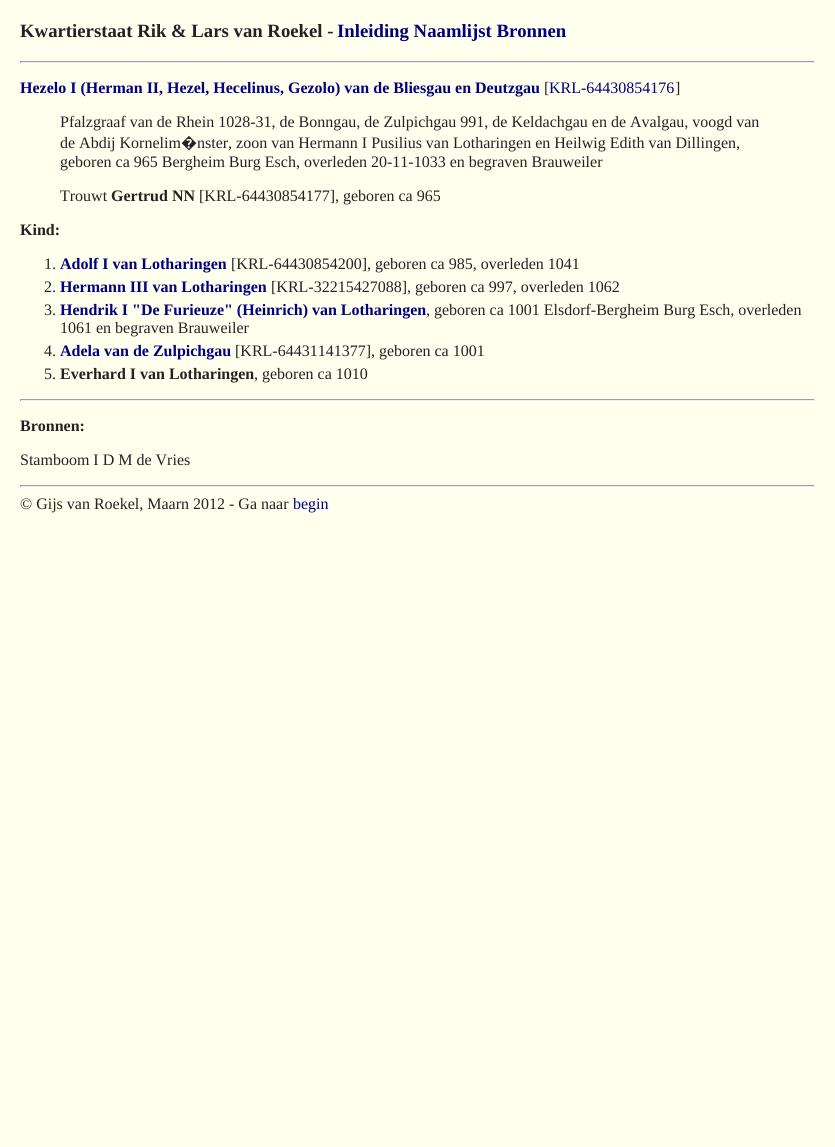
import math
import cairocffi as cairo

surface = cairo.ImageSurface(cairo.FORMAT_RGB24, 835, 1147)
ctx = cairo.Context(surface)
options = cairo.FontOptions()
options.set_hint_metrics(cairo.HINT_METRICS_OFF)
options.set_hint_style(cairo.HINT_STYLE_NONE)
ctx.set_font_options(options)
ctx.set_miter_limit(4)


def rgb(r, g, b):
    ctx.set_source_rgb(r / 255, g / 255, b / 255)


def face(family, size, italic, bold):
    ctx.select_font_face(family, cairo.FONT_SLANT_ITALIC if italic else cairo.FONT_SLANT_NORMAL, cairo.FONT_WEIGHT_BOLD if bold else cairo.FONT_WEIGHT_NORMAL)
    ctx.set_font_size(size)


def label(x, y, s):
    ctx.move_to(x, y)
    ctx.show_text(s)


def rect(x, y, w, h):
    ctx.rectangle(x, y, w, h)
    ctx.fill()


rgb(255, 255, 238)
ctx.paint()
face('Liberation Serif', 18.75, 0, 1)
rgb(34, 34, 34)
label(20, 37, 'Kwartierstaat Rik & Lars van Roekel -')
rgb(0, 0, 128)
label(337, 37, 'Inleiding Naamlijst Bronnen')
rgb(159, 159, 159)
rect(20, 61, 795, 1)
rgb(238, 238, 238)
rect(814, 61, 1, 2)
rect(20, 62, 795, 1)
rgb(159, 159, 159)
rect(20, 61, 1, 2)
face('Liberation Serif', 16, 0, 1)
rgb(0, 0, 128)
label(20, 93, 'Hezelo I (Herman II, Hezel, Hecelinus, Gezolo) van de Bliesgau en Deutzgau')
face('Liberation Serif', 16, 0, 0)
rgb(34, 34, 34)
label(544, 93, '[')
rgb(0, 0, 128)
label(549, 93, 'KRL-64430854176')
rgb(34, 34, 34)
label(675, 93, ']')
label(60, 127, 'Pfalzgraaf van de Rhein 1028-31, de Bonngau, de Zulpichgau 991, de Keldachgau en de Avalgau, voogd van')
label(60, 148, 'de Abdij Kornelim')
face('Noto Sans', 16, 0, 0)
label(181, 148, '�')
face('Liberation Serif', 16, 0, 0)
label(197, 148, 'nster, zoon van Hermann I Pusilius van Lotharingen en Heilwig Edith van Dillingen,')
label(60, 167, 'geboren ca 965 Bergheim Burg Esch, overleden 20-11-1033 en begraven Brauweiler')
label(60, 201, 'Trouwt')
face('Liberation Serif', 16, 0, 1)
label(111, 201, 'Gertrud NN')
face('Liberation Serif', 16, 0, 0)
label(199, 201, '[KRL-64430854177], geboren ca 965')
face('Liberation Serif', 16, 0, 1)
label(20, 235, 'Kind:')
face('Liberation Serif', 16, 0, 0)
label(44, 269, '1.')
face('Liberation Serif', 16, 0, 1)
rgb(0, 0, 128)
label(60, 269, 'Adolf I van Lotharingen')
face('Liberation Serif', 16, 0, 0)
rgb(34, 34, 34)
label(231, 269, '[KRL-64430854200], geboren ca 985, overleden 1041')
label(44, 292, '2.')
face('Liberation Serif', 16, 0, 1)
rgb(0, 0, 128)
label(60, 292, 'Hermann III van Lotharingen')
face('Liberation Serif', 16, 0, 0)
rgb(34, 34, 34)
label(271, 292, '[KRL-32215427088], geboren ca 997, overleden 1062')
label(44, 315, '3.')
face('Liberation Serif', 16, 0, 1)
rgb(0, 0, 128)
label(60, 315, 'Hendrik I "De Furieuze" (Heinrich) van Lotharingen')
face('Liberation Serif', 16, 0, 0)
rgb(34, 34, 34)
label(426, 315, ', geboren ca 1001 Elsdorf-Bergheim Burg Esch, overleden')
label(60, 333, '1061 en begraven Brauweiler')
label(44, 356, '4.')
face('Liberation Serif', 16, 0, 1)
rgb(0, 0, 128)
label(60, 356, 'Adela van de Zulpichgau')
face('Liberation Serif', 16, 0, 0)
rgb(34, 34, 34)
label(235, 356, '[KRL-64431141377], geboren ca 1001')
label(44, 379, '5.')
face('Liberation Serif', 16, 0, 1)
label(60, 379, 'Everhard I van Lotharingen')
face('Liberation Serif', 16, 0, 0)
label(254, 379, ', geboren ca 1010')
rgb(159, 159, 159)
rect(20, 399, 795, 1)
rgb(238, 238, 238)
rect(814, 399, 1, 2)
rect(20, 400, 795, 1)
rgb(159, 159, 159)
rect(20, 399, 1, 2)
face('Liberation Serif', 16, 0, 1)
rgb(34, 34, 34)
label(20, 431, 'Bronnen:')
face('Liberation Serif', 16, 0, 0)
label(20, 465, 'Stamboom I D M de Vries')
rgb(159, 159, 159)
rect(20, 485, 795, 1)
rgb(238, 238, 238)
rect(814, 485, 1, 2)
rect(20, 486, 795, 1)
rgb(159, 159, 159)
rect(20, 485, 1, 2)
rgb(34, 34, 34)
label(20, 509, '© Gijs van Roekel, Maarn 2012 - Ga naar')
rgb(0, 0, 128)
label(293, 509, 'begin')
surface.write_to_png('render.png')
